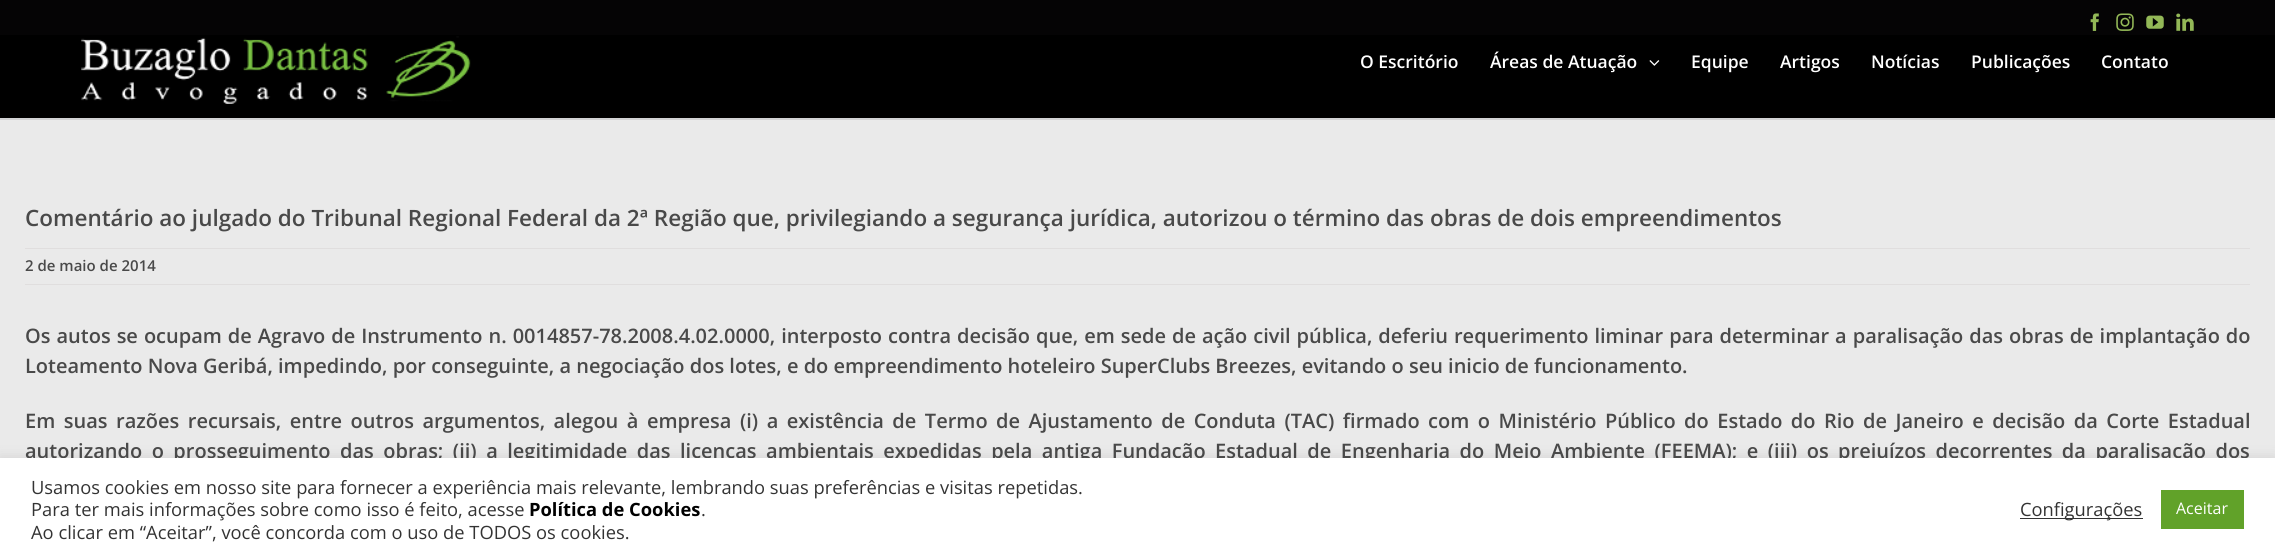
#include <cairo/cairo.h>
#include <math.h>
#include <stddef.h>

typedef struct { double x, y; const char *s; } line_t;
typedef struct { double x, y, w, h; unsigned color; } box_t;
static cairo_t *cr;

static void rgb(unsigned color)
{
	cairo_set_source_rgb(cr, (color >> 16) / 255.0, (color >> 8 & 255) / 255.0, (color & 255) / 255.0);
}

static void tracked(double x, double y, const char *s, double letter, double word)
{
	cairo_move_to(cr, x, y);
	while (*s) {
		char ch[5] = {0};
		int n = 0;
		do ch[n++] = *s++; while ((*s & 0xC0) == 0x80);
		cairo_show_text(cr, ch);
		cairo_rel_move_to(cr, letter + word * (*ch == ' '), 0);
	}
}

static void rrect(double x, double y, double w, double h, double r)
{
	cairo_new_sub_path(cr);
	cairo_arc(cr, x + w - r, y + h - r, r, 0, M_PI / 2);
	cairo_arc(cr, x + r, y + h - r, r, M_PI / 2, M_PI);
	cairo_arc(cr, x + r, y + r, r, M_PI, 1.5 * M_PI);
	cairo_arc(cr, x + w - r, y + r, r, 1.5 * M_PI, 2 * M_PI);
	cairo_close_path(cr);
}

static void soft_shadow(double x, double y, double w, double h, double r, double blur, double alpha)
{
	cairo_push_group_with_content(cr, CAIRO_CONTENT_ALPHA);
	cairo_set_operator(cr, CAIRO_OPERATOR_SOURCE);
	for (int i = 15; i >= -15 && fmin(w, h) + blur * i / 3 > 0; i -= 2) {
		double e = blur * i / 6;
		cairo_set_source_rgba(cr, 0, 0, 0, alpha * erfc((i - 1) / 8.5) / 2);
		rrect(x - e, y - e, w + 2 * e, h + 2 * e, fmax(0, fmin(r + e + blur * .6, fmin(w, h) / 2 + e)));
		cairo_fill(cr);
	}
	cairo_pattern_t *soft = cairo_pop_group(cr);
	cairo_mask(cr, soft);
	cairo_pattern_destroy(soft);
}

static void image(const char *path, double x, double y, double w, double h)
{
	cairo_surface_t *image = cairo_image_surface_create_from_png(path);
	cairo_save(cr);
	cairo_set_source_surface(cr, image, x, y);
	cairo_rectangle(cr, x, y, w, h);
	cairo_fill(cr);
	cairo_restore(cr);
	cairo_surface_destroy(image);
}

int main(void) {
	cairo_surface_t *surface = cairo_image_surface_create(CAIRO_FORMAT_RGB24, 2275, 559);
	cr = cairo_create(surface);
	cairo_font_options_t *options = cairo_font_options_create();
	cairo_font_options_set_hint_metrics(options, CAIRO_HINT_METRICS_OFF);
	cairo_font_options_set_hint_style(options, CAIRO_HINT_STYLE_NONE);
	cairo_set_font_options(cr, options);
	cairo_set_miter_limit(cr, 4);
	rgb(0xd2d3d4);
	cairo_paint(cr);
	rgb(0x050405);
	cairo_rectangle(cr, 0, 0, 2275, 35);
	cairo_fill(cr);
	rgb(0x000000);
	cairo_rectangle(cr, 0, 35, 2275, 83);
	cairo_fill(cr);
	image("img/1.png", 2090, 13, 9, 18);
	image("img/2.png", 2116, 13, 18, 18);
	image("img/3.png", 2146, 15, 18, 14);
	image("img/4.png", 2176, 13, 18, 18);
	image("img/5.png", 81, 36, 390, 68);
	image("img/6.png", 1649, 60, 11, 6);
	{
		static const box_t items[] = {
			{0, 120, 2275, 338, 0xeaeaea},
			{25, 248, 2225, 1, 0xe0dede},
			{25, 284, 2225, 1, 0xe0dede},
		};
		for (size_t i = 0; i < sizeof items / sizeof *items; i++) {
			rgb(items[i].color);
			cairo_rectangle(cr, items[i].x, items[i].y, items[i].w, items[i].h);
			cairo_fill(cr);
		}
	}
	rgb(0xacabab);
	soft_shadow(0, 456, 2275, 103, 0, 6, 0.3);
	cairo_select_font_face(cr, "Open Sans SemiBold", CAIRO_FONT_SLANT_NORMAL, CAIRO_FONT_WEIGHT_NORMAL);
	cairo_set_font_size(cr, 17.5);
	rgb(0xffffff);
	{
		static const line_t items[] = {
			{1360, 68, "O Escritório"},
			{1490, 68, "Áreas de Atuação"},
			{1691, 68, "Equipe"},
			{1780, 68, "Artigos"},
			{1871, 68, "Notícias"},
			{1971, 68, "Publicações"},
			{2101, 68, "Contato"},
		};
		for (size_t i = 0; i < sizeof items / sizeof *items; i++) {
			cairo_move_to(cr, items[i].x, items[i].y);
			cairo_show_text(cr, items[i].s);
		}
	}
	cairo_set_font_size(cr, 22.5);
	rgb(0x494949);
	cairo_move_to(cr, 25, 226);
	cairo_show_text(cr, "Comentário ao julgado do Tribunal Regional Federal da 2ª Região que, privilegiando a segurança jurídica, autorizou o término das obras de dois empreendimentos");
	cairo_set_font_size(cr, 15);
	cairo_move_to(cr, 25, 271);
	cairo_show_text(cr, "2 de maio de 2014");
	cairo_set_font_size(cr, 20);
	tracked(25, 343, "Os autos se ocupam de Agravo de Instrumento n. 0014857-78.2008.4.02.0000, interposto contra decisão que, em sede de ação civil pública, deferiu requerimento liminar para determinar a paralisação das obras de implantação do", 0, 0.8);
	cairo_move_to(cr, 25, 373);
	cairo_show_text(cr, "Loteamento Nova Geribá, impedindo, por conseguinte, a negociação dos lotes, e do empreendimento hoteleiro SuperClubs Breezes, evitando o seu inicio de funcionamento.");
	tracked(25, 428, "Em suas razões recursais, entre outros argumentos, alegou à empresa (i) a existência de Termo de Ajustamento de Conduta (TAC) firmado com o Ministério Público do Estado do Rio de Janeiro e decisão da Corte Estadual", 0, 3.3);
	tracked(25, 458, "autorizando o prosseguimento das obras; (ii) a legitimidade das licenças ambientais expedidas pela antiga Fundação Estadual de Engenharia do Meio Ambiente (FEEMA); e (iii) os prejuízos decorrentes da paralisação dos", 0, 4.3);
	rgb(0xffffff);
	cairo_rectangle(cr, 0, 458, 2275, 101);
	cairo_fill(cr);
	cairo_select_font_face(cr, "Open Sans", CAIRO_FONT_SLANT_NORMAL, CAIRO_FONT_WEIGHT_NORMAL);
	cairo_set_font_size(cr, 18.33);
	rgb(0x333333);
	cairo_move_to(cr, 31, 494);
	cairo_show_text(cr, "Usamos cookies em nosso site para fornecer a experiência mais relevante, lembrando suas preferências e visitas repetidas.");
	cairo_move_to(cr, 31, 516);
	cairo_show_text(cr, "Para ter mais informações sobre como isso é feito, acesse");
	cairo_select_font_face(cr, "Open Sans", CAIRO_FONT_SLANT_NORMAL, CAIRO_FONT_WEIGHT_BOLD);
	rgb(0x000000);
	cairo_move_to(cr, 529, 516);
	cairo_show_text(cr, "Política de Cookies");
	cairo_select_font_face(cr, "Open Sans", CAIRO_FONT_SLANT_NORMAL, CAIRO_FONT_WEIGHT_NORMAL);
	rgb(0x333333);
	cairo_move_to(cr, 701, 516);
	cairo_show_text(cr, ".");
	cairo_move_to(cr, 31, 539);
	cairo_show_text(cr, "Ao clicar em “Aceitar”, você concorda com o uso de TODOS os cookies.");
	cairo_rectangle(cr, 2020, 518, 123, 1);
	cairo_fill(cr);
	cairo_move_to(cr, 2020, 516);
	cairo_show_text(cr, "Configurações");
	rgb(0x61a229);
	cairo_rectangle(cr, 2161, 490, 83, 39);
	cairo_fill(cr);
	cairo_set_font_size(cr, 16);
	rgb(0xffffff);
	cairo_move_to(cr, 2176, 514);
	cairo_show_text(cr, "Aceitar");
	cairo_surface_write_to_png(surface, "page.png");
	cairo_font_options_destroy(options);
	cairo_destroy(cr);
	cairo_surface_destroy(surface);
	return 0;
}
